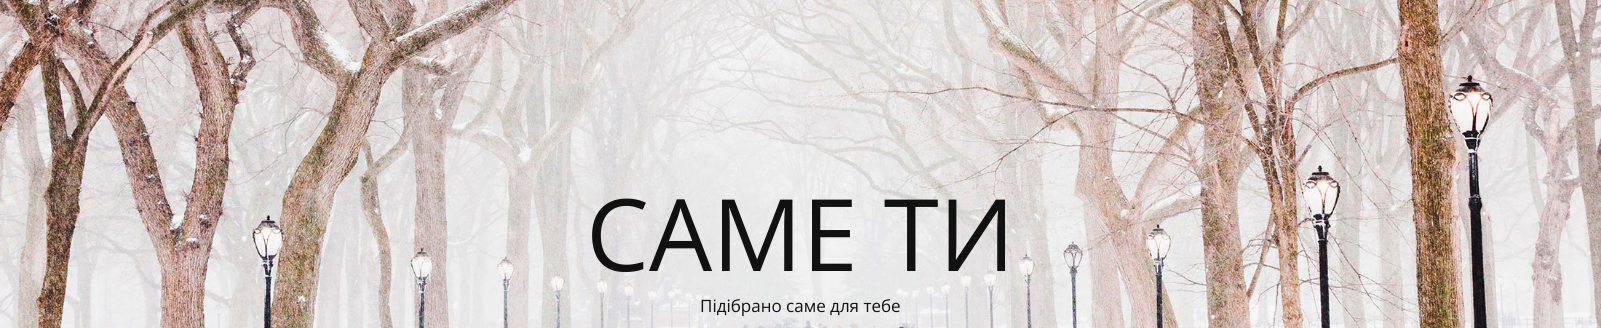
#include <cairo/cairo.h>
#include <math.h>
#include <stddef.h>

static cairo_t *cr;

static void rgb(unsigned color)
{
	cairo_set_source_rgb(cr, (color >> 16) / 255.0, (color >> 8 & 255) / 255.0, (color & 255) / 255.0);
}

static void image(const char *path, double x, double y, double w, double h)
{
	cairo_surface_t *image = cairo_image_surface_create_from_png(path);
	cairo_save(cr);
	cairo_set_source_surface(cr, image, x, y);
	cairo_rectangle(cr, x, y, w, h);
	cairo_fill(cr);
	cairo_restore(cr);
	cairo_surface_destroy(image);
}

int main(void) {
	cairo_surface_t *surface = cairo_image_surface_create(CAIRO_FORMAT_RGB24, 1601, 328);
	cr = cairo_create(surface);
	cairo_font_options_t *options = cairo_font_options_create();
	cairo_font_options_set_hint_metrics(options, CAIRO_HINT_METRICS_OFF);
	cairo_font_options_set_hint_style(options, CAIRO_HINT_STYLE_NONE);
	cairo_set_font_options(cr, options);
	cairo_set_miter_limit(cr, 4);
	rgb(0xffffff);
	cairo_paint(cr);
	image("img/1.png", 0, 0, 1601, 328);
	cairo_select_font_face(cr, "Open Sans", CAIRO_FONT_SLANT_NORMAL, CAIRO_FONT_WEIGHT_NORMAL);
	cairo_set_font_size(cr, 100);
	rgb(0x111111);
	cairo_move_to(cr, 586, 271);
	cairo_show_text(cr, "САМЕ ТИ");
	cairo_set_font_size(cr, 17);
	cairo_move_to(cr, 700, 312);
	cairo_show_text(cr, "Підібрано саме для тебе");
	cairo_surface_write_to_png(surface, "page.png");
	cairo_font_options_destroy(options);
	cairo_destroy(cr);
	cairo_surface_destroy(surface);
	return 0;
}
